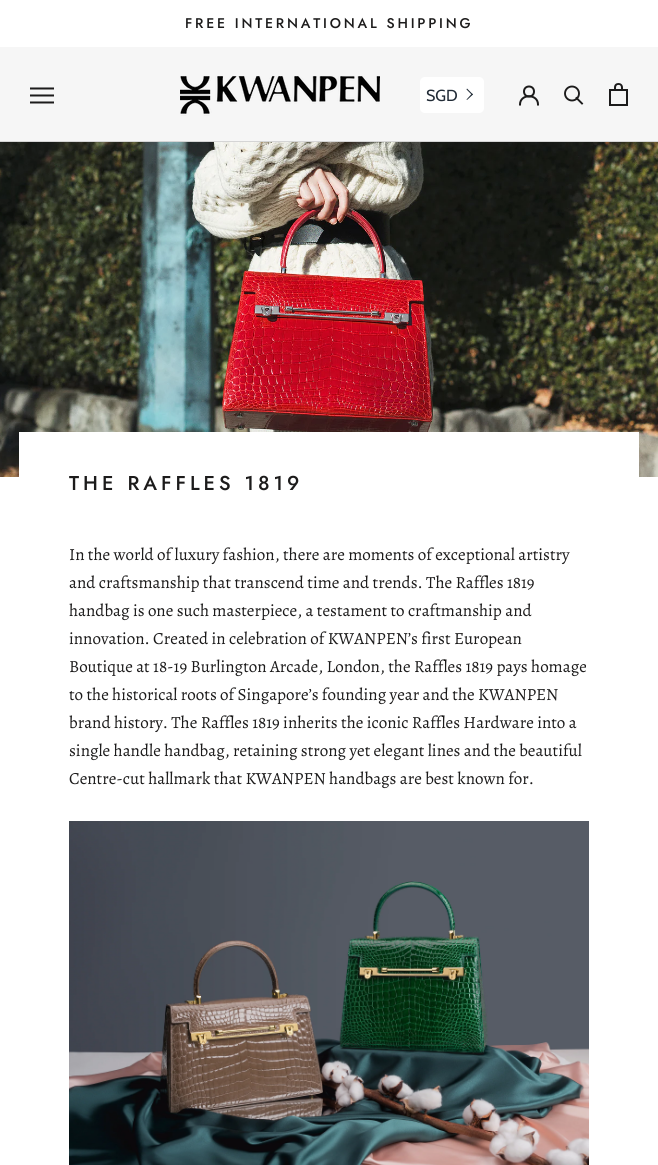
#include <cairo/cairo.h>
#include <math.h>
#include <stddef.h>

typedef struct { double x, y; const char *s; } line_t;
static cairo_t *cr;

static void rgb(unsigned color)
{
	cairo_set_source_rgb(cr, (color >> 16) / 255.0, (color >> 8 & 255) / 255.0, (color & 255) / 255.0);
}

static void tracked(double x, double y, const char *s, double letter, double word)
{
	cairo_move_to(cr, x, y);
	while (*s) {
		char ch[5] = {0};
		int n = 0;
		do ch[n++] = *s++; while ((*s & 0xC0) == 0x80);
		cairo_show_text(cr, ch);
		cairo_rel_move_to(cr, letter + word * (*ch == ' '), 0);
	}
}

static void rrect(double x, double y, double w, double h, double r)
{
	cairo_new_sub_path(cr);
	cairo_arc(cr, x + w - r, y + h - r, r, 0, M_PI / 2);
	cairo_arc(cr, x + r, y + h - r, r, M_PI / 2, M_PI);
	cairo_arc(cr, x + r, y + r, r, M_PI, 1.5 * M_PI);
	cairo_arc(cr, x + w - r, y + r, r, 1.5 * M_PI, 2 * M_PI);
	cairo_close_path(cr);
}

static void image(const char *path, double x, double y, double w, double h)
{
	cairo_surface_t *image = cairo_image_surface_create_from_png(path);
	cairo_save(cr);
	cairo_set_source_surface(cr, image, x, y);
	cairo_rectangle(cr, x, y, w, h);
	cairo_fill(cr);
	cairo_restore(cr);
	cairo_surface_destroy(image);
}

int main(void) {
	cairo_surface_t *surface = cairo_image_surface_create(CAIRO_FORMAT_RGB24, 658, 1165);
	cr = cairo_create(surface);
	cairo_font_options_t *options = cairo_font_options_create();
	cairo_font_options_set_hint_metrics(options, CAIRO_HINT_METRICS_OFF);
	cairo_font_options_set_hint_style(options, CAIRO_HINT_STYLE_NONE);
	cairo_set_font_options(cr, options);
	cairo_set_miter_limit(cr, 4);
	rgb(0xffffff);
	cairo_paint(cr);
	rgb(0xf6f6f6);
	cairo_rectangle(cr, 0, 47, 658, 94);
	cairo_fill(cr);
	rgb(0xd5d5d5);
	cairo_rectangle(cr, 0, 141, 658, 1);
	cairo_fill(cr);
	image("img/1.png", 30, 87, 24, 17);
	image("img/2.png", 180, 76, 200, 40);
	rgb(0xffffff);
	rrect(420, 77, 64, 36, 5);
	cairo_fill(cr);
	rgb(0x212b36);
	cairo_new_path(cr);
	cairo_move_to(cr, 466.5, 89.5);
	cairo_line_to(cr, 467, 88.5);
	cairo_line_to(cr, 473, 94.5);
	cairo_line_to(cr, 472, 95);
	cairo_close_path(cr);
	cairo_fill(cr);
	cairo_new_path(cr);
	cairo_move_to(cr, 466.5, 99.5);
	cairo_line_to(cr, 472, 93.5);
	cairo_line_to(cr, 473, 94.5);
	cairo_line_to(cr, 467, 100);
	cairo_close_path(cr);
	cairo_fill(cr);
	cairo_new_path(cr);
	cairo_move_to(cr, 520, 104.5);
	cairo_curve_to(cr, 520, 93.5, 538, 93.5, 538, 104.5);
	rgb(0x1c1b1b);
	cairo_set_line_cap(cr, CAIRO_LINE_CAP_SQUARE);
	cairo_stroke(cr);
	cairo_arc(cr, 529, 91.5, 5, 0, 2 * M_PI);
	cairo_set_line_cap(cr, CAIRO_LINE_CAP_BUTT);
	cairo_stroke(cr);
	cairo_new_path(cr);
	cairo_move_to(cr, 582, 103.5);
	cairo_line_to(cr, 576.5, 98);
	cairo_set_line_width(cr, 1.9);
	cairo_set_line_cap(cr, CAIRO_LINE_CAP_SQUARE);
	cairo_stroke(cr);
	cairo_arc(cr, 572, 93.5, 7, 0, 2 * M_PI);
	cairo_set_line_cap(cr, CAIRO_LINE_CAP_BUTT);
	cairo_stroke(cr);
	image("img/3.png", 609, 83, 19, 23);
	image("img/4.png", 0, 142, 658, 335);
	rgb(0xffffff);
	cairo_rectangle(cr, 19, 432, 620, 45);
	cairo_fill(cr);
	image("img/5.png", 69, 821, 520, 344);
	cairo_select_font_face(cr, "Jost Medium", CAIRO_FONT_SLANT_NORMAL, CAIRO_FONT_WEIGHT_NORMAL);
	cairo_set_font_size(cr, 14);
	rgb(0x1c1b1b);
	tracked(185, 28, "FREE INTERNATIONAL SHIPPING", 2.8, 0);
	cairo_select_font_face(cr, "Cabin", CAIRO_FONT_SLANT_NORMAL, CAIRO_FONT_WEIGHT_NORMAL);
	cairo_set_font_size(cr, 16);
	rgb(0x212b36);
	cairo_move_to(cr, 426, 101);
	cairo_show_text(cr, "SGD");
	cairo_select_font_face(cr, "Jost Medium", CAIRO_FONT_SLANT_NORMAL, CAIRO_FONT_WEIGHT_NORMAL);
	cairo_set_font_size(cr, 20);
	rgb(0x1c1b1b);
	tracked(69, 490, "THE RAFFLES 1819", 4, 0);
	cairo_select_font_face(cr, "Alegreya", CAIRO_FONT_SLANT_NORMAL, CAIRO_FONT_WEIGHT_NORMAL);
	cairo_set_font_size(cr, 17);
	{
		static const line_t items[] = {
			{69, 560, "In the world of luxury fashion, there are moments of exceptional artistry"},
			{69, 588, "and craftsmanship that transcend time and trends. The Raffles 1819"},
			{69, 616, "handbag is one such masterpiece, a testament to craftmanship and"},
			{69, 644, "innovation. Created in celebration of KWANPEN’s first European"},
			{69, 672, "Boutique at 18-19 Burlington Arcade, London, the Raffles 1819 pays homage"},
			{69, 700, "to the historical roots of Singapore’s founding year and the KWANPEN"},
			{69, 728, "brand history. The Raffles 1819 inherits the iconic Raffles Hardware into a"},
			{69, 756, "single handle handbag, retaining strong yet elegant lines and the beautiful"},
			{69, 784, "Centre-cut hallmark that KWANPEN handbags are best known for."},
		};
		for (size_t i = 0; i < sizeof items / sizeof *items; i++) {
			cairo_move_to(cr, items[i].x, items[i].y);
			cairo_show_text(cr, items[i].s);
		}
	}
	cairo_surface_write_to_png(surface, "page.png");
	cairo_font_options_destroy(options);
	cairo_destroy(cr);
	cairo_surface_destroy(surface);
	return 0;
}
